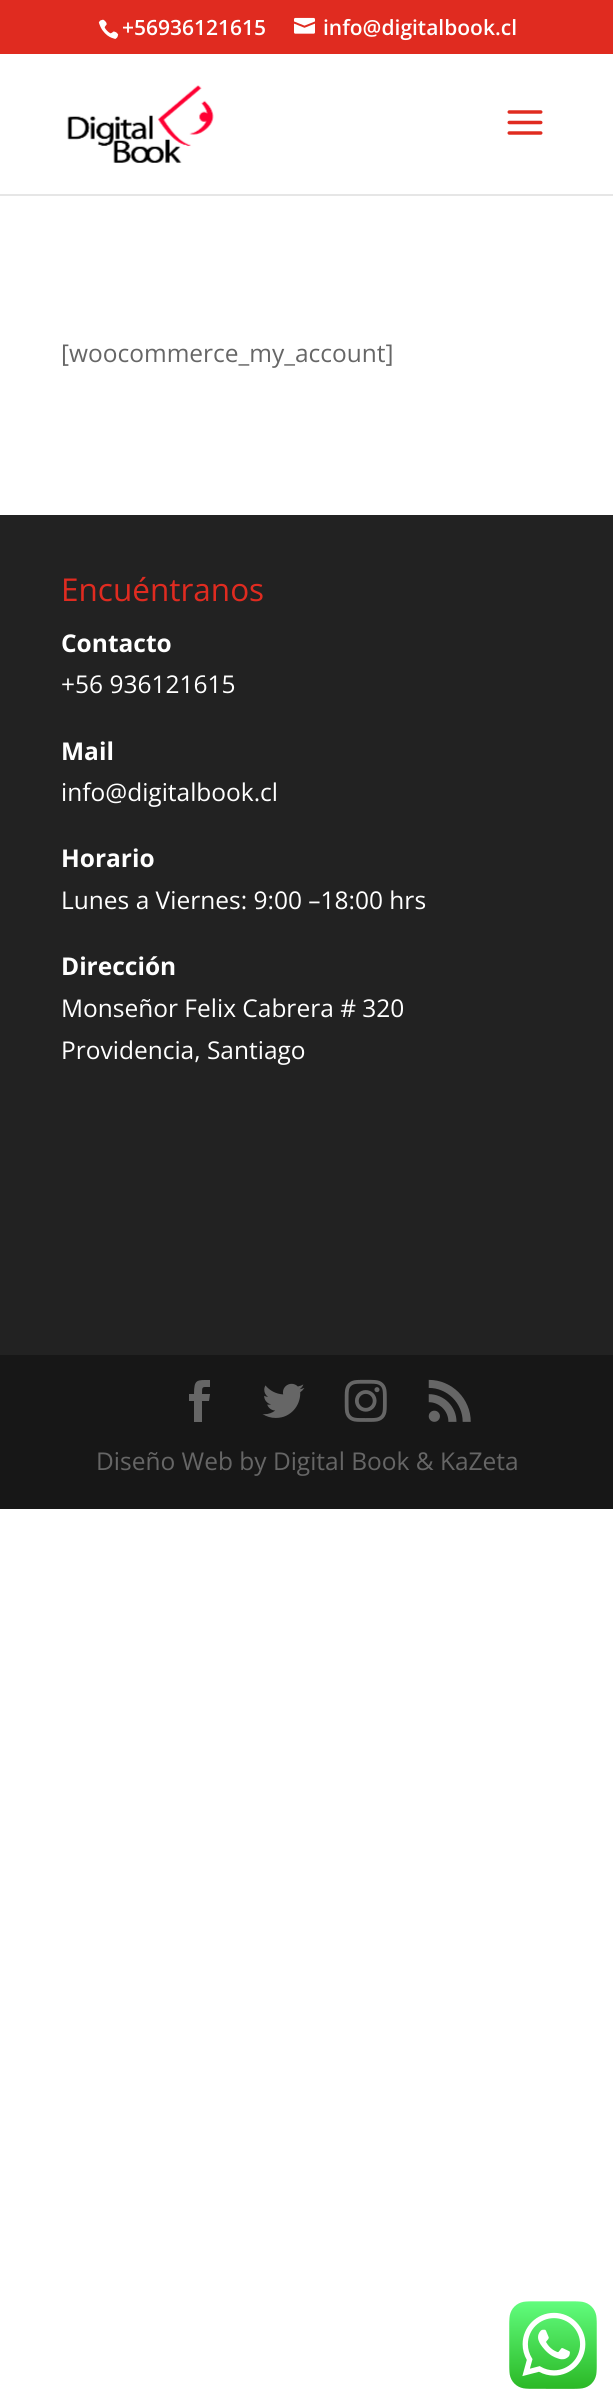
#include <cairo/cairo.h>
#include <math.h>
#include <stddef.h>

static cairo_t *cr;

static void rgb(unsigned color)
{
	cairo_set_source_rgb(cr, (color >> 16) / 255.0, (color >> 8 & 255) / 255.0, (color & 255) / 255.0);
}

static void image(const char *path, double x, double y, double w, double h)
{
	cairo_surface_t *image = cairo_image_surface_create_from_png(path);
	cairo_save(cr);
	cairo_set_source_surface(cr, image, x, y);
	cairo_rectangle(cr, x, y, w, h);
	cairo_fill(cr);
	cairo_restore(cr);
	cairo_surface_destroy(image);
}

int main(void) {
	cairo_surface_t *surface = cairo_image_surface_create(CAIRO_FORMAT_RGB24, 613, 2405);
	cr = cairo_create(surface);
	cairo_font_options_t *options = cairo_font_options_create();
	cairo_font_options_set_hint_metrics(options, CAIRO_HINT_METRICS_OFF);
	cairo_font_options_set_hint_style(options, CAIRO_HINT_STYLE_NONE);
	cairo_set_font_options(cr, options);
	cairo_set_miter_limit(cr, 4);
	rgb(0xffffff);
	cairo_paint(cr);
	rgb(0xe02b20);
	cairo_rectangle(cr, 0, 0, 613, 54);
	cairo_fill(cr);
	image("img/1.png", 98, 19, 21, 20);
	image("img/2.png", 294, 17, 21, 17);
	rgb(0xe6e6e6);
	cairo_rectangle(cr, 0, 194, 613, 2);
	cairo_fill(cr);
	image("img/3.png", 67, 85, 147, 78);
	image("img/4.png", 507, 110, 36, 25);
	rgb(0x222222);
	cairo_rectangle(cr, 0, 515, 613, 840);
	cairo_fill(cr);
	rgb(0x171717);
	cairo_rectangle(cr, 0, 1355, 613, 154);
	cairo_fill(cr);
	rgb(0x666666);
	cairo_new_path(cr);
	cairo_move_to(cr, 194, 1422);
	cairo_line_to(cr, 202, 1422);
	cairo_line_to(cr, 202, 1401);
	cairo_line_to(cr, 209, 1401);
	cairo_line_to(cr, 210, 1394);
	cairo_line_to(cr, 202, 1394);
	cairo_curve_to(cr, 202, 1386, 202, 1387, 210, 1387);
	cairo_line_to(cr, 210, 1380);
	cairo_curve_to(cr, 197, 1380, 194, 1379, 194, 1394);
	cairo_line_to(cr, 189, 1394);
	cairo_line_to(cr, 189, 1401);
	cairo_line_to(cr, 194, 1401);
	cairo_close_path(cr);
	cairo_fill(cr);
	image("img/5.png", 262, 1383, 43, 35);
	image("img/6.png", 344, 1379, 43, 43);
	image("img/7.png", 428, 1379, 43, 43);
	image("img/8.png", 509, 2301, 88, 88);
	cairo_select_font_face(cr, "Open Sans SemiBold", CAIRO_FONT_SLANT_NORMAL, CAIRO_FONT_WEIGHT_NORMAL);
	cairo_set_font_size(cr, 21);
	rgb(0xffffff);
	cairo_move_to(cr, 122, 35);
	cairo_show_text(cr, "+56936121615");
	cairo_move_to(cr, 323, 35);
	cairo_show_text(cr, "info@digitalbook.cl");
	cairo_select_font_face(cr, "Open Sans", CAIRO_FONT_SLANT_NORMAL, CAIRO_FONT_WEIGHT_NORMAL);
	cairo_set_font_size(cr, 24.5);
	rgb(0x666666);
	cairo_move_to(cr, 61, 362);
	cairo_show_text(cr, "[woocommerce_my_account]");
	cairo_set_font_size(cr, 31.5);
	rgb(0xe02b20);
	cairo_move_to(cr, 61, 601);
	cairo_show_text(cr, "Encuéntranos");
	cairo_select_font_face(cr, "Open Sans", CAIRO_FONT_SLANT_NORMAL, CAIRO_FONT_WEIGHT_BOLD);
	cairo_set_font_size(cr, 24.5);
	rgb(0xffffff);
	cairo_move_to(cr, 61, 652);
	cairo_show_text(cr, "Contacto");
	cairo_select_font_face(cr, "Open Sans", CAIRO_FONT_SLANT_NORMAL, CAIRO_FONT_WEIGHT_NORMAL);
	cairo_move_to(cr, 61, 693);
	cairo_show_text(cr, "+56 936121615");
	cairo_select_font_face(cr, "Open Sans", CAIRO_FONT_SLANT_NORMAL, CAIRO_FONT_WEIGHT_BOLD);
	cairo_move_to(cr, 61, 760);
	cairo_show_text(cr, "Mail");
	cairo_select_font_face(cr, "Open Sans", CAIRO_FONT_SLANT_NORMAL, CAIRO_FONT_WEIGHT_NORMAL);
	cairo_move_to(cr, 61, 801);
	cairo_show_text(cr, "info@digitalbook.cl");
	cairo_select_font_face(cr, "Open Sans", CAIRO_FONT_SLANT_NORMAL, CAIRO_FONT_WEIGHT_BOLD);
	cairo_move_to(cr, 61, 867);
	cairo_show_text(cr, "Horario");
	cairo_select_font_face(cr, "Open Sans", CAIRO_FONT_SLANT_NORMAL, CAIRO_FONT_WEIGHT_NORMAL);
	cairo_move_to(cr, 61, 909);
	cairo_show_text(cr, "Lunes a Viernes: 9:00 –18:00 hrs");
	cairo_select_font_face(cr, "Open Sans", CAIRO_FONT_SLANT_NORMAL, CAIRO_FONT_WEIGHT_BOLD);
	cairo_move_to(cr, 61, 975);
	cairo_show_text(cr, "Dirección");
	cairo_select_font_face(cr, "Open Sans", CAIRO_FONT_SLANT_NORMAL, CAIRO_FONT_WEIGHT_NORMAL);
	cairo_move_to(cr, 61, 1017);
	cairo_show_text(cr, "Monseñor Felix Cabrera # 320");
	cairo_move_to(cr, 61, 1059);
	cairo_show_text(cr, "Providencia, Santiago");
	rgb(0x666666);
	cairo_move_to(cr, 96, 1470);
	cairo_show_text(cr, "Diseño Web by Digital Book & KaZeta");
	cairo_surface_write_to_png(surface, "page.png");
	cairo_font_options_destroy(options);
	cairo_destroy(cr);
	cairo_surface_destroy(surface);
	return 0;
}
